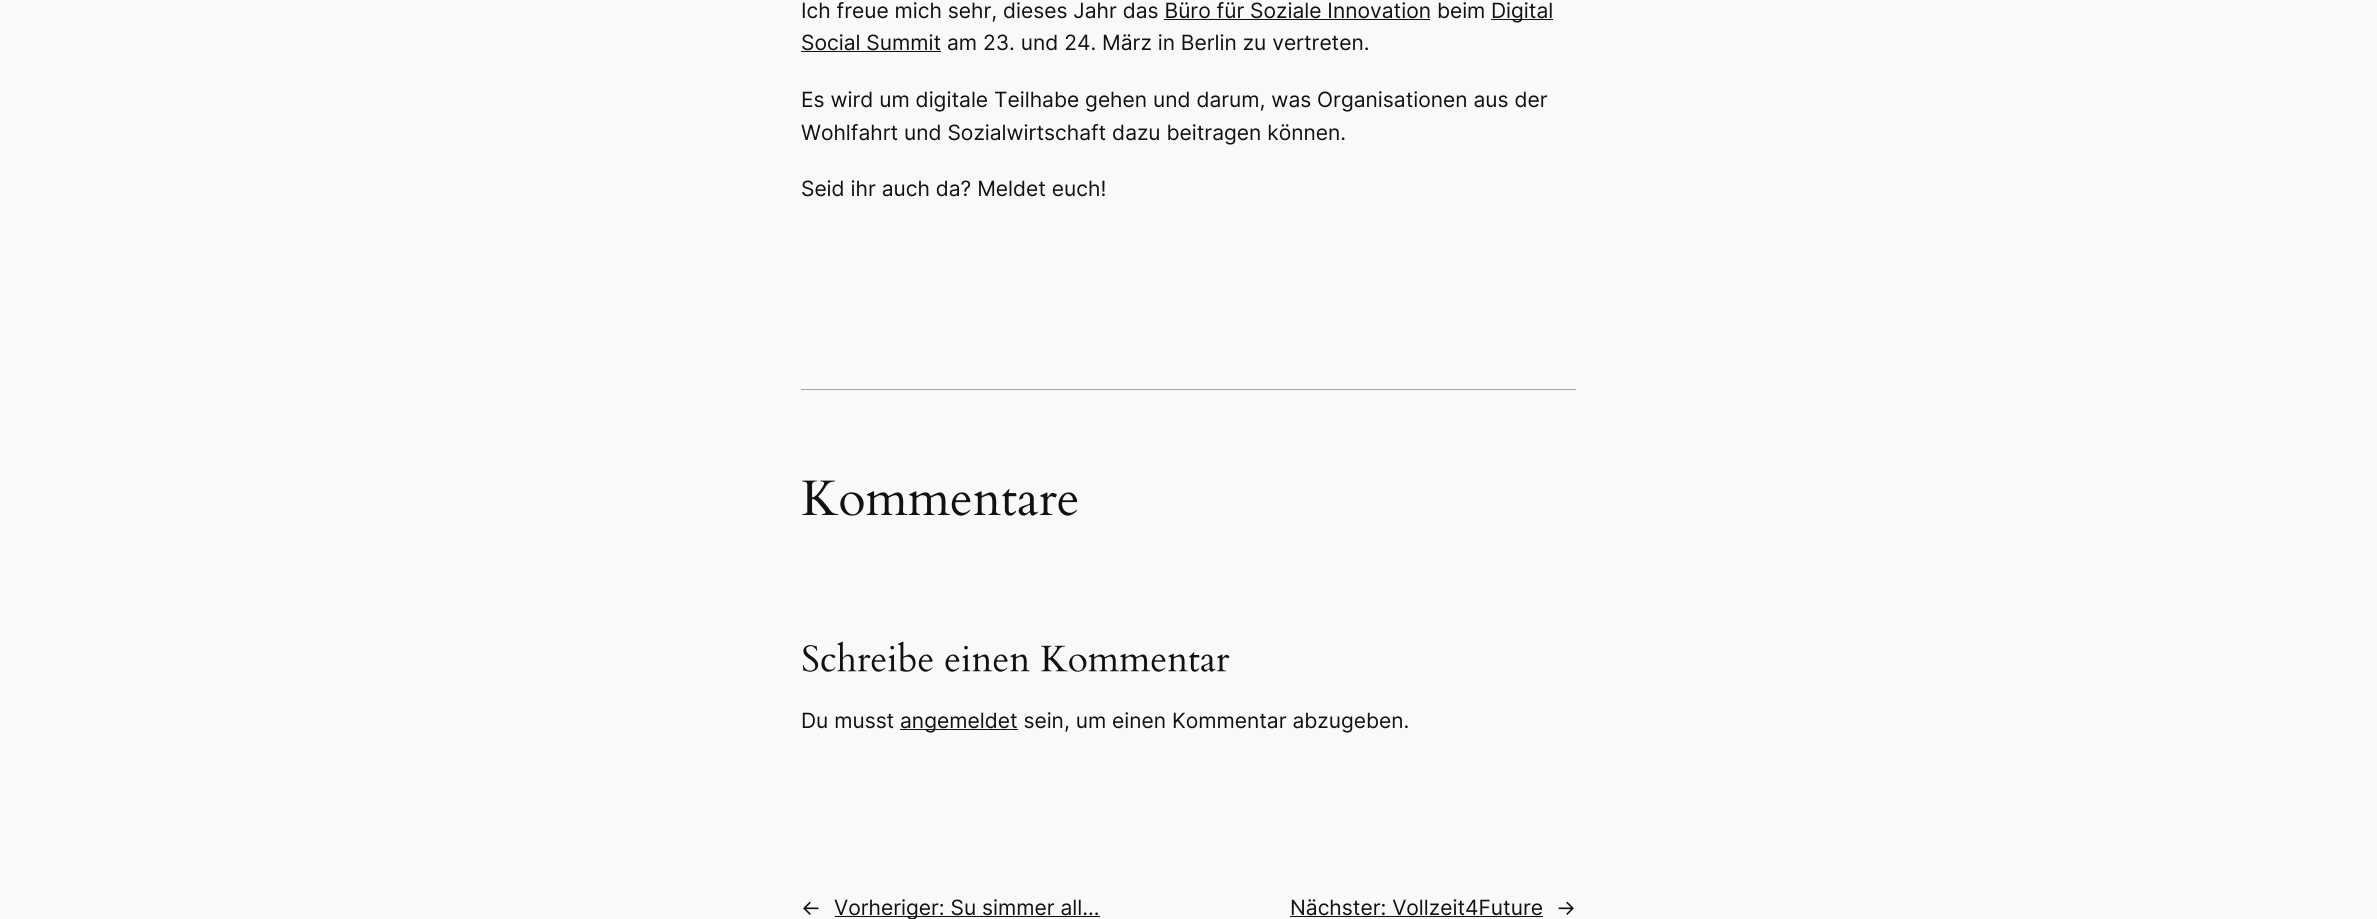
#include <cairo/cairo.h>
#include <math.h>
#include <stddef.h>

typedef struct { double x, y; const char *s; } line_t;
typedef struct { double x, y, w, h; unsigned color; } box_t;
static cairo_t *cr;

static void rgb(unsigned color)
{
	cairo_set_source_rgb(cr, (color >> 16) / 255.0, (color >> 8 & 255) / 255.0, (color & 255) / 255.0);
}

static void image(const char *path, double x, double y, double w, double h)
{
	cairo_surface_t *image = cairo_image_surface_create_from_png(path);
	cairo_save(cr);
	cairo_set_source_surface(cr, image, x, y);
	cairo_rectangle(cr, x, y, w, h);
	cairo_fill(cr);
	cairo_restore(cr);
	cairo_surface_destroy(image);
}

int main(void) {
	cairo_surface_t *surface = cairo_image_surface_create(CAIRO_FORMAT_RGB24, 2377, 919);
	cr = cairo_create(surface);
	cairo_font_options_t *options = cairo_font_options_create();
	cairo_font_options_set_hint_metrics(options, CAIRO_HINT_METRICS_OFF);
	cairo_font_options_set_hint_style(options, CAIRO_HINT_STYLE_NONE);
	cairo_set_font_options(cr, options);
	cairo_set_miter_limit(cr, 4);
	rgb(0xf9f9f9);
	cairo_paint(cr);
	{
		static const box_t items[] = {
			{1491, 19, 62, 1, 0x111111},
			{1164, 19, 266, 1, 0x111111},
			{801, 51, 140, 1, 0x111111},
			{801, 389, 775, 1, 0xa4a4a4},
		};
		for (size_t i = 0; i < sizeof items / sizeof *items; i++) {
			rgb(items[i].color);
			cairo_rectangle(cr, items[i].x, items[i].y, items[i].w, items[i].h);
			cairo_fill(cr);
		}
	}
	image("img/1.png", 802, 480, 276, 36);
	image("img/2.png", 802, 641, 428, 31);
	{
		static const box_t items[] = {
			{900, 729, 118, 1, 0x111111},
			{835, 916, 265, 1, 0x111111},
			{1290, 916, 253, 1, 0x111111},
		};
		for (size_t i = 0; i < sizeof items / sizeof *items; i++) {
			rgb(items[i].color);
			cairo_rectangle(cr, items[i].x, items[i].y, items[i].w, items[i].h);
			cairo_fill(cr);
		}
	}
	cairo_select_font_face(cr, "Inter", CAIRO_FONT_SLANT_NORMAL, CAIRO_FONT_WEIGHT_NORMAL);
	cairo_set_font_size(cr, 21);
	{
		static const line_t items[] = {
			{801, 18, "Ich freue mich sehr, dieses Jahr das Büro für Soziale Innovation beim"},
			{1491, 18, "Digital"},
			{801, 50, "Social Summit am 23. und 24. März in Berlin zu vertreten."},
			{801, 107, "Es wird um digitale Teilhabe gehen und darum, was Organisationen aus der"},
			{801, 140, "Wohlfahrt und Sozialwirtschaft dazu beitragen können."},
			{801, 196, "Seid ihr auch da? Meldet euch!"},
			{801, 728, "Du musst"},
			{900, 728, "angemeldet sein, um einen Kommentar abzugeben."},
			{801, 915, "←"},
			{834, 915, "Vorheriger: Su simmer all…"},
			{1290, 915, "Nächster: Vollzeit4Future"},
			{1556, 915, "→"},
		};
		for (size_t i = 0; i < sizeof items / sizeof *items; i++) {
			cairo_move_to(cr, items[i].x, items[i].y);
			cairo_show_text(cr, items[i].s);
		}
	}
	cairo_surface_write_to_png(surface, "page.png");
	cairo_font_options_destroy(options);
	cairo_destroy(cr);
	cairo_surface_destroy(surface);
	return 0;
}
